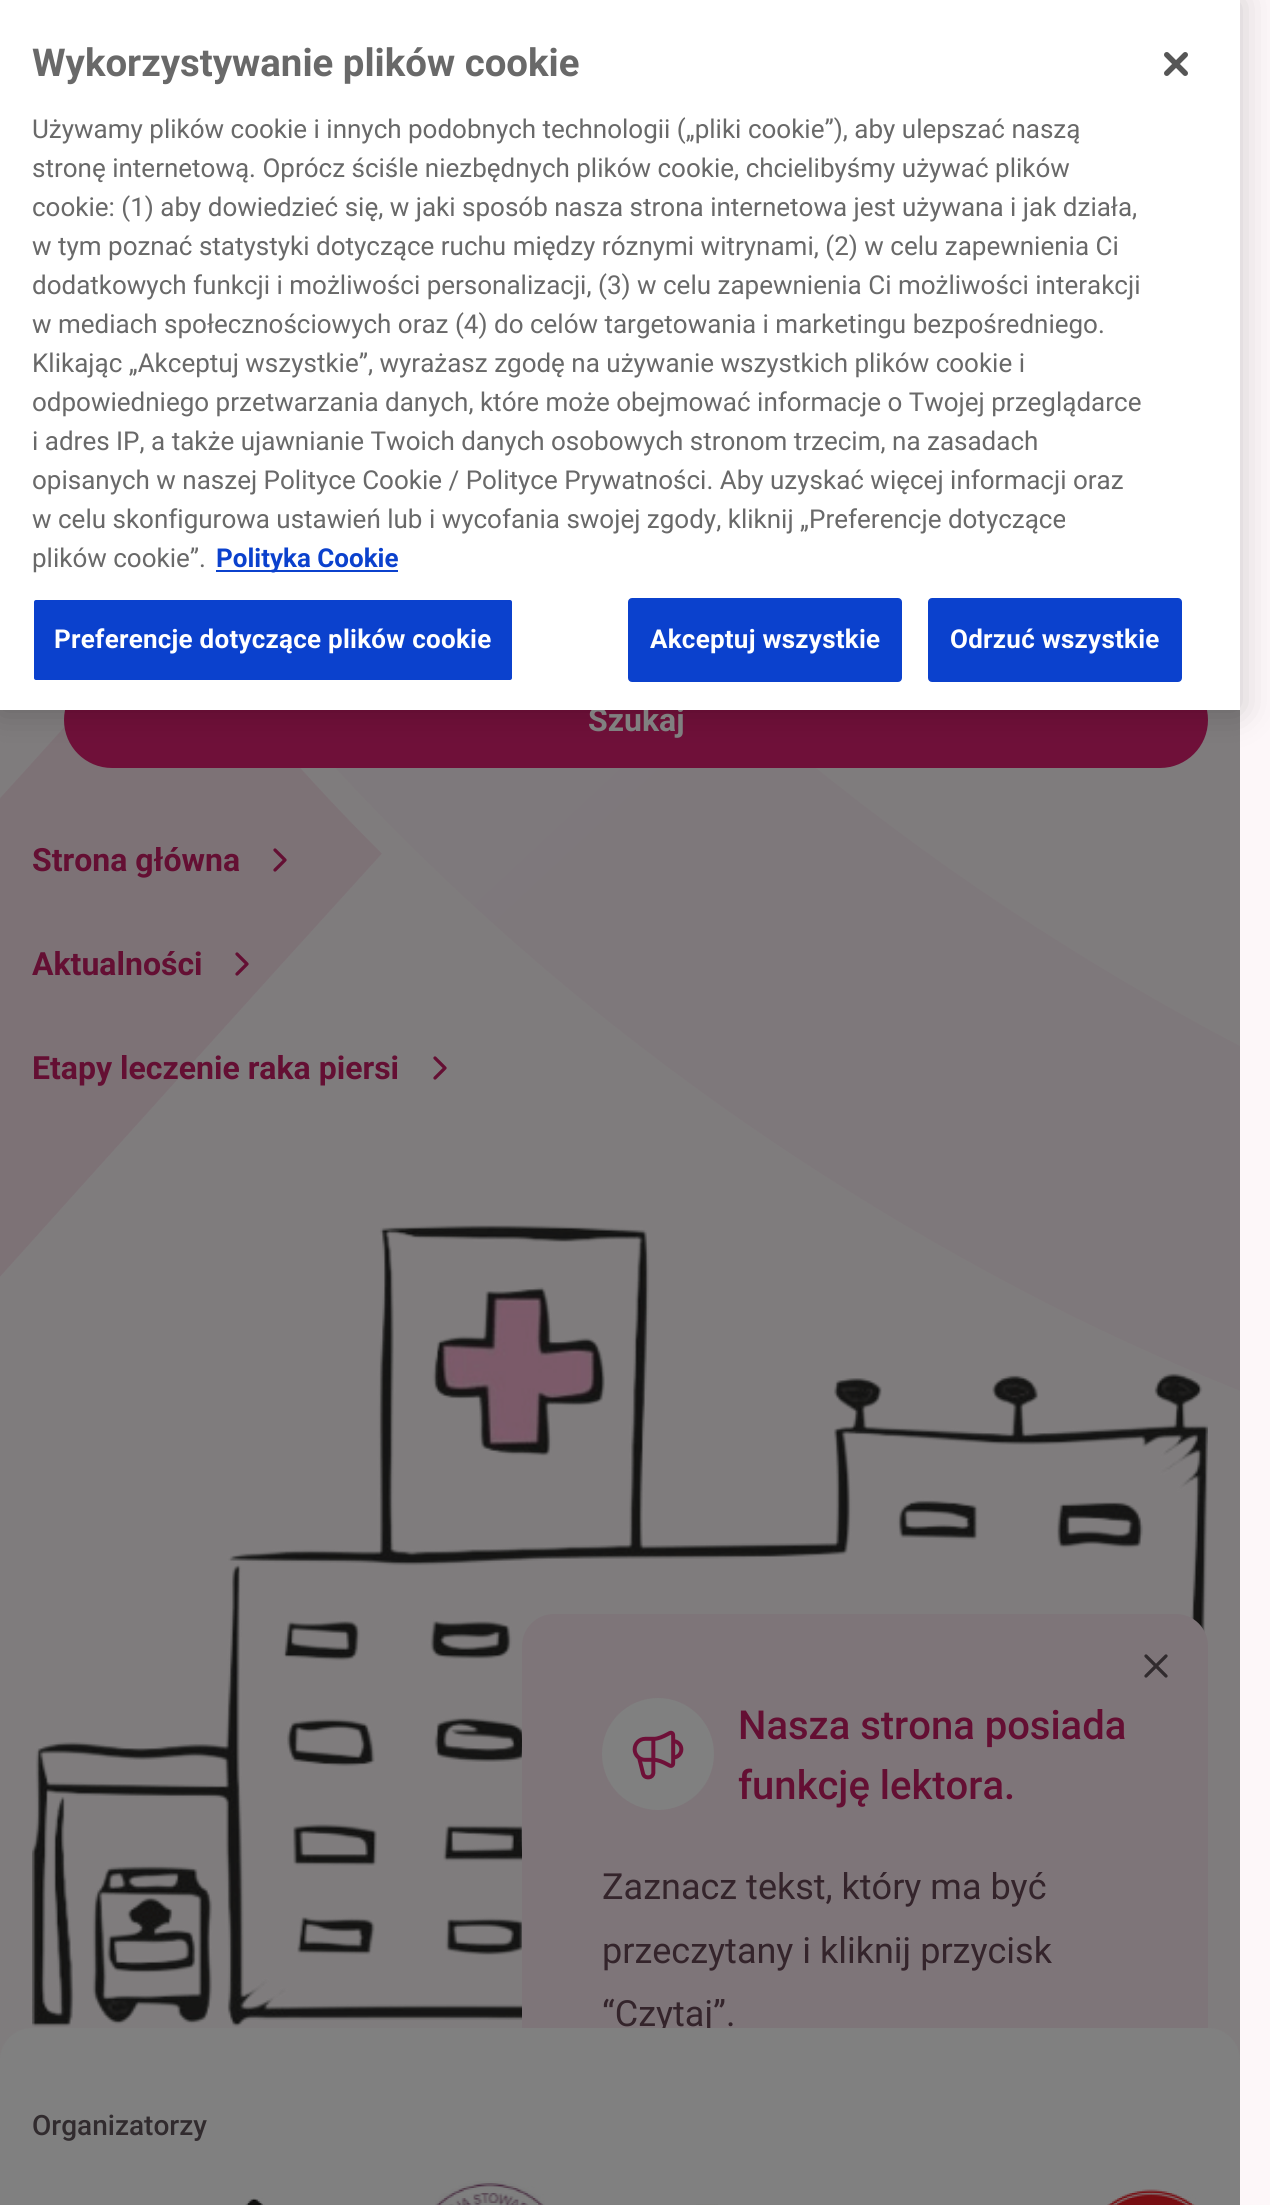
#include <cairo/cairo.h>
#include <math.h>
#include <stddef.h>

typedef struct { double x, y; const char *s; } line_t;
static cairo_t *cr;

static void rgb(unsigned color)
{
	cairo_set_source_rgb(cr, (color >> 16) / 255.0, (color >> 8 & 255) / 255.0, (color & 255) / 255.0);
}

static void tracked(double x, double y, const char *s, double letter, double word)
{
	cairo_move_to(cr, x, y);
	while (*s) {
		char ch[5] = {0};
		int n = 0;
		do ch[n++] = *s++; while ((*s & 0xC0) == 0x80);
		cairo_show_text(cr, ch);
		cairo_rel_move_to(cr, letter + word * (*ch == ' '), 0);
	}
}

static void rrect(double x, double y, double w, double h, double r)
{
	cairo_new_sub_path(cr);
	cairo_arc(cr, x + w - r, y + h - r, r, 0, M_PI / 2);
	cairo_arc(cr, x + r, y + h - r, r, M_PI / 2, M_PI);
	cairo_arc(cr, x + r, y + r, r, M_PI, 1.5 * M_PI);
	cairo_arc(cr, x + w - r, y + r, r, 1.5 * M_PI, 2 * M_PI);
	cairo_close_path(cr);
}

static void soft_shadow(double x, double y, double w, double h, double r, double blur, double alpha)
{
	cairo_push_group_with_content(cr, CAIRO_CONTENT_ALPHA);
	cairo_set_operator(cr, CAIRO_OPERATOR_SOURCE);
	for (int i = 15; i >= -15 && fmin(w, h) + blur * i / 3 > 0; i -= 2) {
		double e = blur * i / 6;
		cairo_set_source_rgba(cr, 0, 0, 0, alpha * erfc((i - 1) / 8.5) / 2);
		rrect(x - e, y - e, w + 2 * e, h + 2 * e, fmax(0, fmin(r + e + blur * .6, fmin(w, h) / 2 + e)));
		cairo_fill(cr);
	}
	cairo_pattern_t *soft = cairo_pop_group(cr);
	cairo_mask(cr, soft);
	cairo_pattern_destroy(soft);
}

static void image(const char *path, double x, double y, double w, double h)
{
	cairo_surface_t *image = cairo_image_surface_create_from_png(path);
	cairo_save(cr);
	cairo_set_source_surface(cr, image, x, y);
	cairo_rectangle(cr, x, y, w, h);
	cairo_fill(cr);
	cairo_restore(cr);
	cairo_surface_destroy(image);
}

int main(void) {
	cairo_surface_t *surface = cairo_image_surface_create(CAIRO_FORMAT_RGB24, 1270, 2205);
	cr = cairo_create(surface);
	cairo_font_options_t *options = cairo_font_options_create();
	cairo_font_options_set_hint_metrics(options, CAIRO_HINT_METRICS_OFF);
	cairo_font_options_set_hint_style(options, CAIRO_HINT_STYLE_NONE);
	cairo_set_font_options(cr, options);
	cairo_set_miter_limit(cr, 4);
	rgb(0xfdf7f9);
	cairo_paint(cr);
	rgb(0x7f7c7d);
	cairo_rectangle(cr, 0, 710, 1240, 1350);
	cairo_fill(cr);
	image("img/8.png", 0, 726, 1240, 665);
	rgb(0x6f1039);
	rrect(65, 673, 1142, 94, 47);
	cairo_fill_preserve(cr);
	cairo_stroke(cr);
	rgb(0x000000);
	soft_shadow(0, 0, 1240, 710, 0, 18, 0.2);
	cairo_new_path(cr);
	cairo_move_to(cr, 275, 870);
	cairo_line_to(cr, 285, 860);
	cairo_line_to(cr, 275, 850);
	rgb(0x640f33);
	cairo_set_line_width(cr, 3.3);
	cairo_set_line_cap(cr, CAIRO_LINE_CAP_ROUND);
	cairo_set_line_join(cr, CAIRO_LINE_JOIN_ROUND);
	cairo_stroke(cr);
	cairo_new_path(cr);
	cairo_move_to(cr, 237, 974);
	cairo_line_to(cr, 247, 964);
	cairo_line_to(cr, 237, 954);
	cairo_stroke(cr);
	cairo_new_path(cr);
	cairo_move_to(cr, 435, 1078);
	cairo_line_to(cr, 445, 1068);
	cairo_line_to(cr, 435, 1058);
	cairo_stroke(cr);
	image("img/2.png", 32, 1225, 1176, 802);
	rgb(0x7e7579);
	rrect(522, 1614, 686, 512, 32);
	cairo_fill(cr);
	cairo_new_path(cr);
	cairo_move_to(cr, 1166, 1656);
	cairo_line_to(cr, 1146, 1676);
	cairo_move_to(cr, 1146, 1656);
	cairo_line_to(cr, 1166, 1676);
	rgb(0x312b2e);
	cairo_stroke(cr);
	image("img/3.png", 602, 1698, 112, 112);
	cairo_select_font_face(cr, "Roboto", CAIRO_FONT_SLANT_NORMAL, CAIRO_FONT_WEIGHT_BOLD);
	cairo_set_font_size(cr, 32);
	rgb(0x808080);
	cairo_move_to(cr, 588, 731);
	cairo_show_text(cr, "Szukaj");
	rgb(0xffffff);
	cairo_rectangle(cr, 0, 0, 1240, 710);
	cairo_fill(cr);
	image("img/1.png", 1164, 52, 24, 24);
	rgb(0x0b41cd);
	rrect(629, 599, 272, 82, 3);
	cairo_fill_preserve(cr);
	cairo_set_line_width(cr, 2);
	cairo_set_line_cap(cr, CAIRO_LINE_CAP_BUTT);
	cairo_set_line_join(cr, CAIRO_LINE_JOIN_MITER);
	cairo_stroke(cr);
	cairo_set_font_size(cr, 26);
	rgb(0xffffff);
	tracked(650, 648, "Akceptuj wszystkie", 0.25, 0);
	rgb(0x0b41cd);
	rrect(929, 599, 252, 82, 3);
	cairo_fill_preserve(cr);
	cairo_stroke(cr);
	rgb(0xffffff);
	tracked(950, 648, "Odrzuć wszystkie", 0.25, 0);
	rgb(0x0b41cd);
	rrect(33, 599, 480, 82, 3);
	cairo_fill_preserve(cr);
	rgb(0xffffff);
	cairo_stroke(cr);
	tracked(54, 648, "Preferencje dotyczące plików cookie", 0.25, 0);
	rgb(0x0b41cd);
	cairo_rectangle(cr, 216, 570, 182, 2);
	cairo_fill(cr);
	cairo_move_to(cr, 216, 567);
	cairo_show_text(cr, "Polityka Cookie");
	cairo_select_font_face(cr, "Roboto", CAIRO_FONT_SLANT_NORMAL, CAIRO_FONT_WEIGHT_NORMAL);
	rgb(0x696969);
	{
		static const line_t items[] = {
			{32, 567, "plików cookie”."},
			{32, 528, "w celu skonfigurowa ustawień lub i wycofania swojej zgody, kliknij „Preferencje dotyczące"},
			{32, 489, "opisanych w naszej Polityce Cookie / Polityce Prywatności. Aby uzyskać więcej informacji oraz"},
			{32, 450, "i adres IP, a także ujawnianie Twoich danych osobowych stronom trzecim, na zasadach"},
			{32, 411, "odpowiedniego przetwarzania danych, które może obejmować informacje o Twojej przeglądarce"},
			{32, 372, "Klikając „Akceptuj wszystkie”, wyrażasz zgodę na używanie wszystkich plików cookie i"},
			{32, 333, "w mediach społecznościowych oraz (4) do celów targetowania i marketingu bezpośredniego."},
			{32, 294, "dodatkowych funkcji i możliwości personalizacji, (3) w celu zapewnienia Ci możliwości interakcji"},
			{32, 255, "w tym poznać statystyki dotyczące ruchu między róznymi witrynami, (2) w celu zapewnienia Ci"},
			{32, 216, "cookie: (1) aby dowiedzieć się, w jaki sposób nasza strona internetowa jest używana i jak działa,"},
			{32, 177, "stronę internetową. Oprócz ściśle niezbędnych plików cookie, chcielibyśmy używać plików"},
			{32, 138, "Używamy plików cookie i innych podobnych technologii („pliki cookie”), aby ulepszać naszą"},
		};
		for (size_t i = 0; i < sizeof items / sizeof *items; i++) {
			cairo_move_to(cr, items[i].x, items[i].y);
			cairo_show_text(cr, items[i].s);
		}
	}
	cairo_select_font_face(cr, "Roboto", CAIRO_FONT_SLANT_NORMAL, CAIRO_FONT_WEIGHT_BOLD);
	cairo_set_font_size(cr, 38.4);
	cairo_move_to(cr, 32, 76);
	cairo_show_text(cr, "Wykorzystywanie plików cookie");
	cairo_set_font_size(cr, 32);
	rgb(0x640f33);
	{
		static const line_t items[] = {
			{32, 871, "Strona główna"},
			{32, 975, "Aktualności"},
			{32, 1079, "Etapy leczenie raka piersi"},
		};
		for (size_t i = 0; i < sizeof items / sizeof *items; i++) {
			cairo_move_to(cr, items[i].x, items[i].y);
			cairo_show_text(cr, items[i].s);
		}
	}
	cairo_select_font_face(cr, "Roboto Medium", CAIRO_FONT_SLANT_NORMAL, CAIRO_FONT_WEIGHT_NORMAL);
	cairo_set_font_size(cr, 40);
	cairo_move_to(cr, 738, 1739);
	cairo_show_text(cr, "Nasza strona posiada");
	cairo_move_to(cr, 738, 1799);
	cairo_show_text(cr, "funkcję lektora.");
	cairo_select_font_face(cr, "Roboto", CAIRO_FONT_SLANT_NORMAL, CAIRO_FONT_WEIGHT_NORMAL);
	cairo_set_font_size(cr, 36);
	rgb(0x34242b);
	{
		static const line_t items[] = {
			{602, 1899, "Zaznacz tekst, który ma być"},
			{602, 1963, "przeczytany i kliknij przycisk"},
			{602, 2026, "“Czytaj”."},
		};
		for (size_t i = 0; i < sizeof items / sizeof *items; i++) {
			cairo_move_to(cr, items[i].x, items[i].y);
			cairo_show_text(cr, items[i].s);
		}
	}
	rgb(0x808080);
	cairo_new_path(cr);
	cairo_move_to(cr, 32, 2028);
	cairo_line_to(cr, 1208, 2028);
	cairo_curve_to(cr, 1225.5, 2028, 1240, 2042.5, 1240, 2060);
	cairo_line_to(cr, 1240, 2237);
	cairo_line_to(cr, 0, 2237);
	cairo_line_to(cr, 0, 2060);
	cairo_curve_to(cr, 0, 2042.5, 14.5, 2028, 32, 2028);
	cairo_close_path(cr);
	cairo_fill(cr);
	cairo_select_font_face(cr, "Roboto Medium", CAIRO_FONT_SLANT_NORMAL, CAIRO_FONT_WEIGHT_NORMAL);
	cairo_set_font_size(cr, 28);
	rgb(0x312b2e);
	cairo_move_to(cr, 32, 2135);
	cairo_show_text(cr, "Organizatorzy");
	image("img/4.png", 245, 2198, 20, 7);
	image("img/5.png", 435, 2181, 110, 24);
	image("img/6.png", 696, 2204, 22, 1);
	image("img/7.png", 1107, 2189, 89, 16);
	cairo_surface_write_to_png(surface, "page.png");
	cairo_font_options_destroy(options);
	cairo_destroy(cr);
	cairo_surface_destroy(surface);
	return 0;
}
